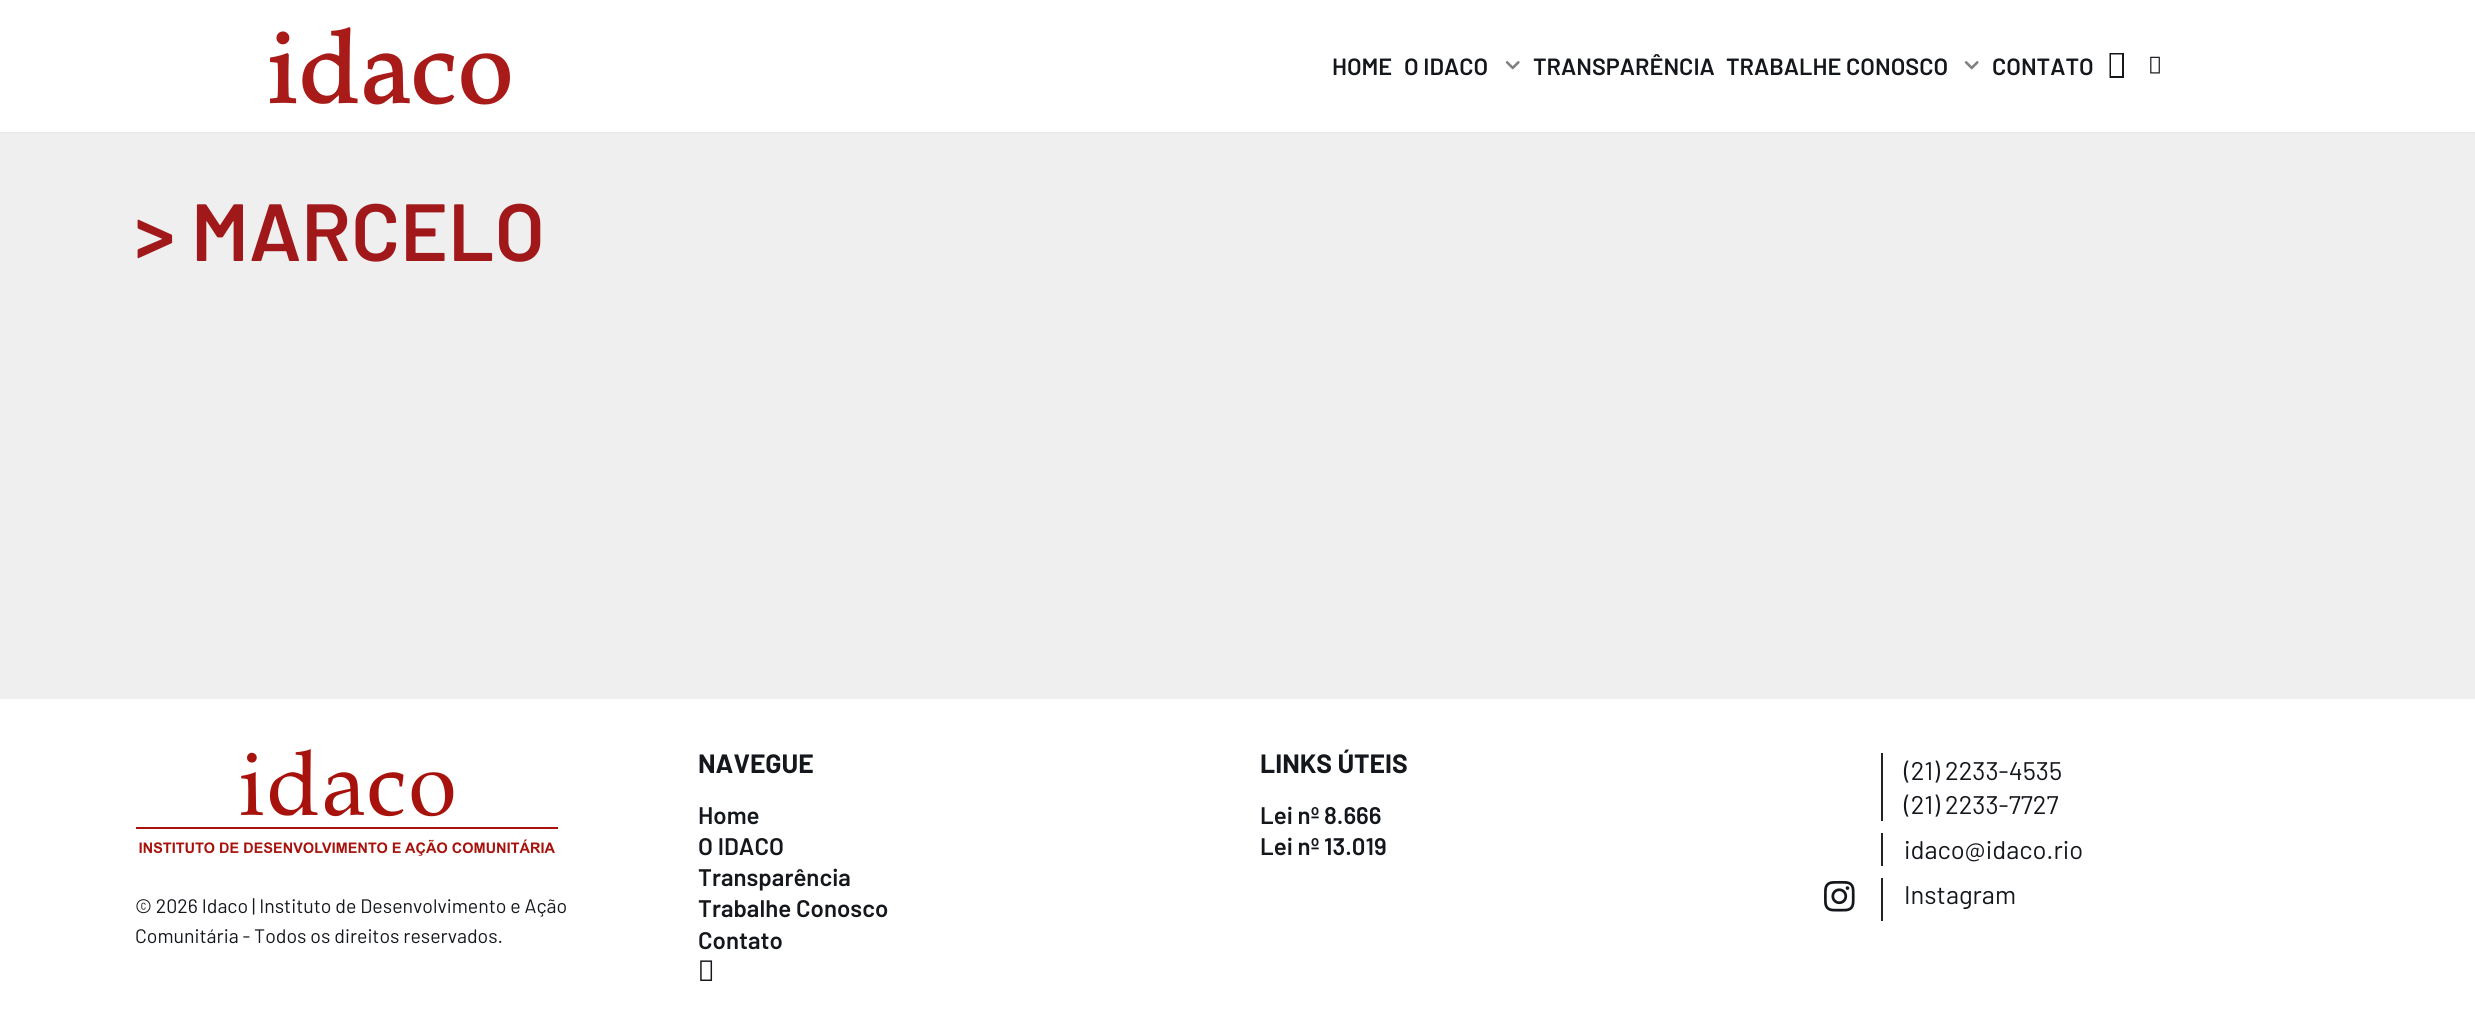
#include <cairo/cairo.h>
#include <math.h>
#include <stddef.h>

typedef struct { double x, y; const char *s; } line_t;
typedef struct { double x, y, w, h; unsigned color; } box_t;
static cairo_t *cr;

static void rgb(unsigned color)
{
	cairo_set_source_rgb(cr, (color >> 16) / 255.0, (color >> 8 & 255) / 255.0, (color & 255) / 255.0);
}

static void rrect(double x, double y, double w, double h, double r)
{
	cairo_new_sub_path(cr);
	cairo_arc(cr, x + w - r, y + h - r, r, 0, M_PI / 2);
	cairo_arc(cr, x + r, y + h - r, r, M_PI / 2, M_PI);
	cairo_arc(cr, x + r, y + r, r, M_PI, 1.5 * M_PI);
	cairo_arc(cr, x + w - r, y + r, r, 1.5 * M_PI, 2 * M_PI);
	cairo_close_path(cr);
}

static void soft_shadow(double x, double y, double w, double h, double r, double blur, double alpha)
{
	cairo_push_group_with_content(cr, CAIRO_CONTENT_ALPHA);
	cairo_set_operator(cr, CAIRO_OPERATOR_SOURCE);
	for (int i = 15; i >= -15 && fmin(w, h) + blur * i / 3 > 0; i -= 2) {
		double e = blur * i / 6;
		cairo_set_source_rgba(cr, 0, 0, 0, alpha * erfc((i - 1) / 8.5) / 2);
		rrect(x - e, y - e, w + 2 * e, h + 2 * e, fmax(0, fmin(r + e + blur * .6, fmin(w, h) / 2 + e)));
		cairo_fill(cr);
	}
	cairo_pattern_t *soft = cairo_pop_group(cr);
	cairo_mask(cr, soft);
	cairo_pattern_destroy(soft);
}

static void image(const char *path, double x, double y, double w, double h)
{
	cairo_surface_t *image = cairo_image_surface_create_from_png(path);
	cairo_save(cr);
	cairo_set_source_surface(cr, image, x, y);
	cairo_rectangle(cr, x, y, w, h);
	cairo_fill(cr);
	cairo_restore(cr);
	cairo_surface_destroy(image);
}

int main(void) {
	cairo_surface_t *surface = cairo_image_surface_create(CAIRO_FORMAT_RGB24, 2475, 1029);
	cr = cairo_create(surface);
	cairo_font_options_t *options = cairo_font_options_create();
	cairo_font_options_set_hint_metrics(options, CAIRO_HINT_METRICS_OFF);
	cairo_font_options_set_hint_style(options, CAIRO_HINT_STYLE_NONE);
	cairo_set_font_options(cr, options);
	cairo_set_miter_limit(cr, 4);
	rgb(0xefefef);
	cairo_paint(cr);
	rgb(0x000000);
	soft_shadow(0, -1, 2475, 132, 0, 2, 0.1);
	rgb(0xffffff);
	cairo_rectangle(cr, 0, 0, 2475, 132);
	cairo_fill(cr);
	image("img/1.png", 270, 27, 240, 78);
	image("img/2.png", 1505, 61, 15, 9);
	image("img/2.png", 1964, 61, 15, 9);
	rgb(0x14171c);
	cairo_new_path(cr);
	cairo_move_to(cr, 2109.5, 78);
	cairo_line_to(cr, 2109.5, 53);
	cairo_line_to(cr, 2124, 53);
	cairo_line_to(cr, 2124, 78);
	cairo_close_path(cr);
	cairo_move_to(cr, 2111, 76);
	cairo_line_to(cr, 2122, 76);
	cairo_line_to(cr, 2122, 54.5);
	cairo_line_to(cr, 2111, 54.5);
	cairo_close_path(cr);
	cairo_fill(cr);
	image("img/3.png", 2150, 56, 10, 18);
	rgb(0xffffff);
	cairo_rectangle(cr, 0, 699, 2475, 330);
	cairo_fill(cr);
	image("img/4.png", 700, 960, 13, 21);
	{
		static const box_t items[] = {
			{1881, 753, 2, 68, 0x212121},
			{1881, 833, 2, 33, 0x212121},
			{1881, 878, 2, 43, 0x212121},
		};
		for (size_t i = 0; i < sizeof items / sizeof *items; i++) {
			rgb(items[i].color);
			cairo_rectangle(cr, items[i].x, items[i].y, items[i].w, items[i].h);
			cairo_fill(cr);
		}
	}
	image("img/5.png", 1824, 880, 31, 32);
	image("img/6.png", 136, 749, 422, 107);
	cairo_select_font_face(cr, "Barlow SemiBold", CAIRO_FONT_SLANT_NORMAL, CAIRO_FONT_WEIGHT_NORMAL);
	cairo_set_font_size(cr, 23.5);
	rgb(0x14171c);
	{
		static const line_t items[] = {
			{1332, 75, "HOME"},
			{1404, 75, "O IDACO"},
			{1533, 75, "TRANSPARÊNCIA"},
			{1726, 75, "TRABALHE CONOSCO"},
			{1992, 75, "CONTATO"},
		};
		for (size_t i = 0; i < sizeof items / sizeof *items; i++) {
			cairo_move_to(cr, items[i].x, items[i].y);
			cairo_show_text(cr, items[i].s);
		}
	}
	cairo_set_font_size(cr, 81);
	rgb(0xa1181a);
	cairo_move_to(cr, 135, 261);
	cairo_show_text(cr, "> MARCELO");
	cairo_select_font_face(cr, "Barlow", CAIRO_FONT_SLANT_NORMAL, CAIRO_FONT_WEIGHT_BOLD);
	cairo_set_font_size(cr, 26.5);
	rgb(0x14171c);
	cairo_move_to(cr, 698, 773);
	cairo_show_text(cr, "NAVEGUE");
	cairo_select_font_face(cr, "Barlow SemiBold", CAIRO_FONT_SLANT_NORMAL, CAIRO_FONT_WEIGHT_NORMAL);
	cairo_set_font_size(cr, 24);
	{
		static const line_t items[] = {
			{698, 824, "Home"},
			{698, 855, "O IDACO"},
			{698, 886, "Transparência"},
			{698, 917, "Trabalhe Conosco"},
			{698, 949, "Contato"},
		};
		for (size_t i = 0; i < sizeof items / sizeof *items; i++) {
			cairo_move_to(cr, items[i].x, items[i].y);
			cairo_show_text(cr, items[i].s);
		}
	}
	cairo_select_font_face(cr, "Barlow", CAIRO_FONT_SLANT_NORMAL, CAIRO_FONT_WEIGHT_BOLD);
	cairo_set_font_size(cr, 26.5);
	cairo_move_to(cr, 1260, 773);
	cairo_show_text(cr, "LINKS ÚTEIS");
	cairo_select_font_face(cr, "Barlow SemiBold", CAIRO_FONT_SLANT_NORMAL, CAIRO_FONT_WEIGHT_NORMAL);
	cairo_set_font_size(cr, 24);
	cairo_move_to(cr, 1260, 824);
	cairo_show_text(cr, "Lei nº 8.666");
	cairo_move_to(cr, 1260, 855);
	cairo_show_text(cr, "Lei nº 13.019");
	cairo_select_font_face(cr, "Barlow", CAIRO_FONT_SLANT_NORMAL, CAIRO_FONT_WEIGHT_NORMAL);
	cairo_set_font_size(cr, 25.5);
	{
		static const line_t items[] = {
			{1904, 780, "(21) 2233-4535"},
			{1904, 814, "(21) 2233-7727"},
			{1904, 859, "idaco@idaco.rio"},
			{1904, 904, "Instagram"},
		};
		for (size_t i = 0; i < sizeof items / sizeof *items; i++) {
			cairo_move_to(cr, items[i].x, items[i].y);
			cairo_show_text(cr, items[i].s);
		}
	}
	cairo_set_font_size(cr, 19.5);
	cairo_move_to(cr, 135, 913);
	cairo_show_text(cr, "© 2026 Idaco | Instituto de Desenvolvimento e Ação");
	cairo_move_to(cr, 135, 943);
	cairo_show_text(cr, "Comunitária - Todos os direitos reservados.");
	cairo_surface_write_to_png(surface, "page.png");
	cairo_font_options_destroy(options);
	cairo_destroy(cr);
	cairo_surface_destroy(surface);
	return 0;
}
